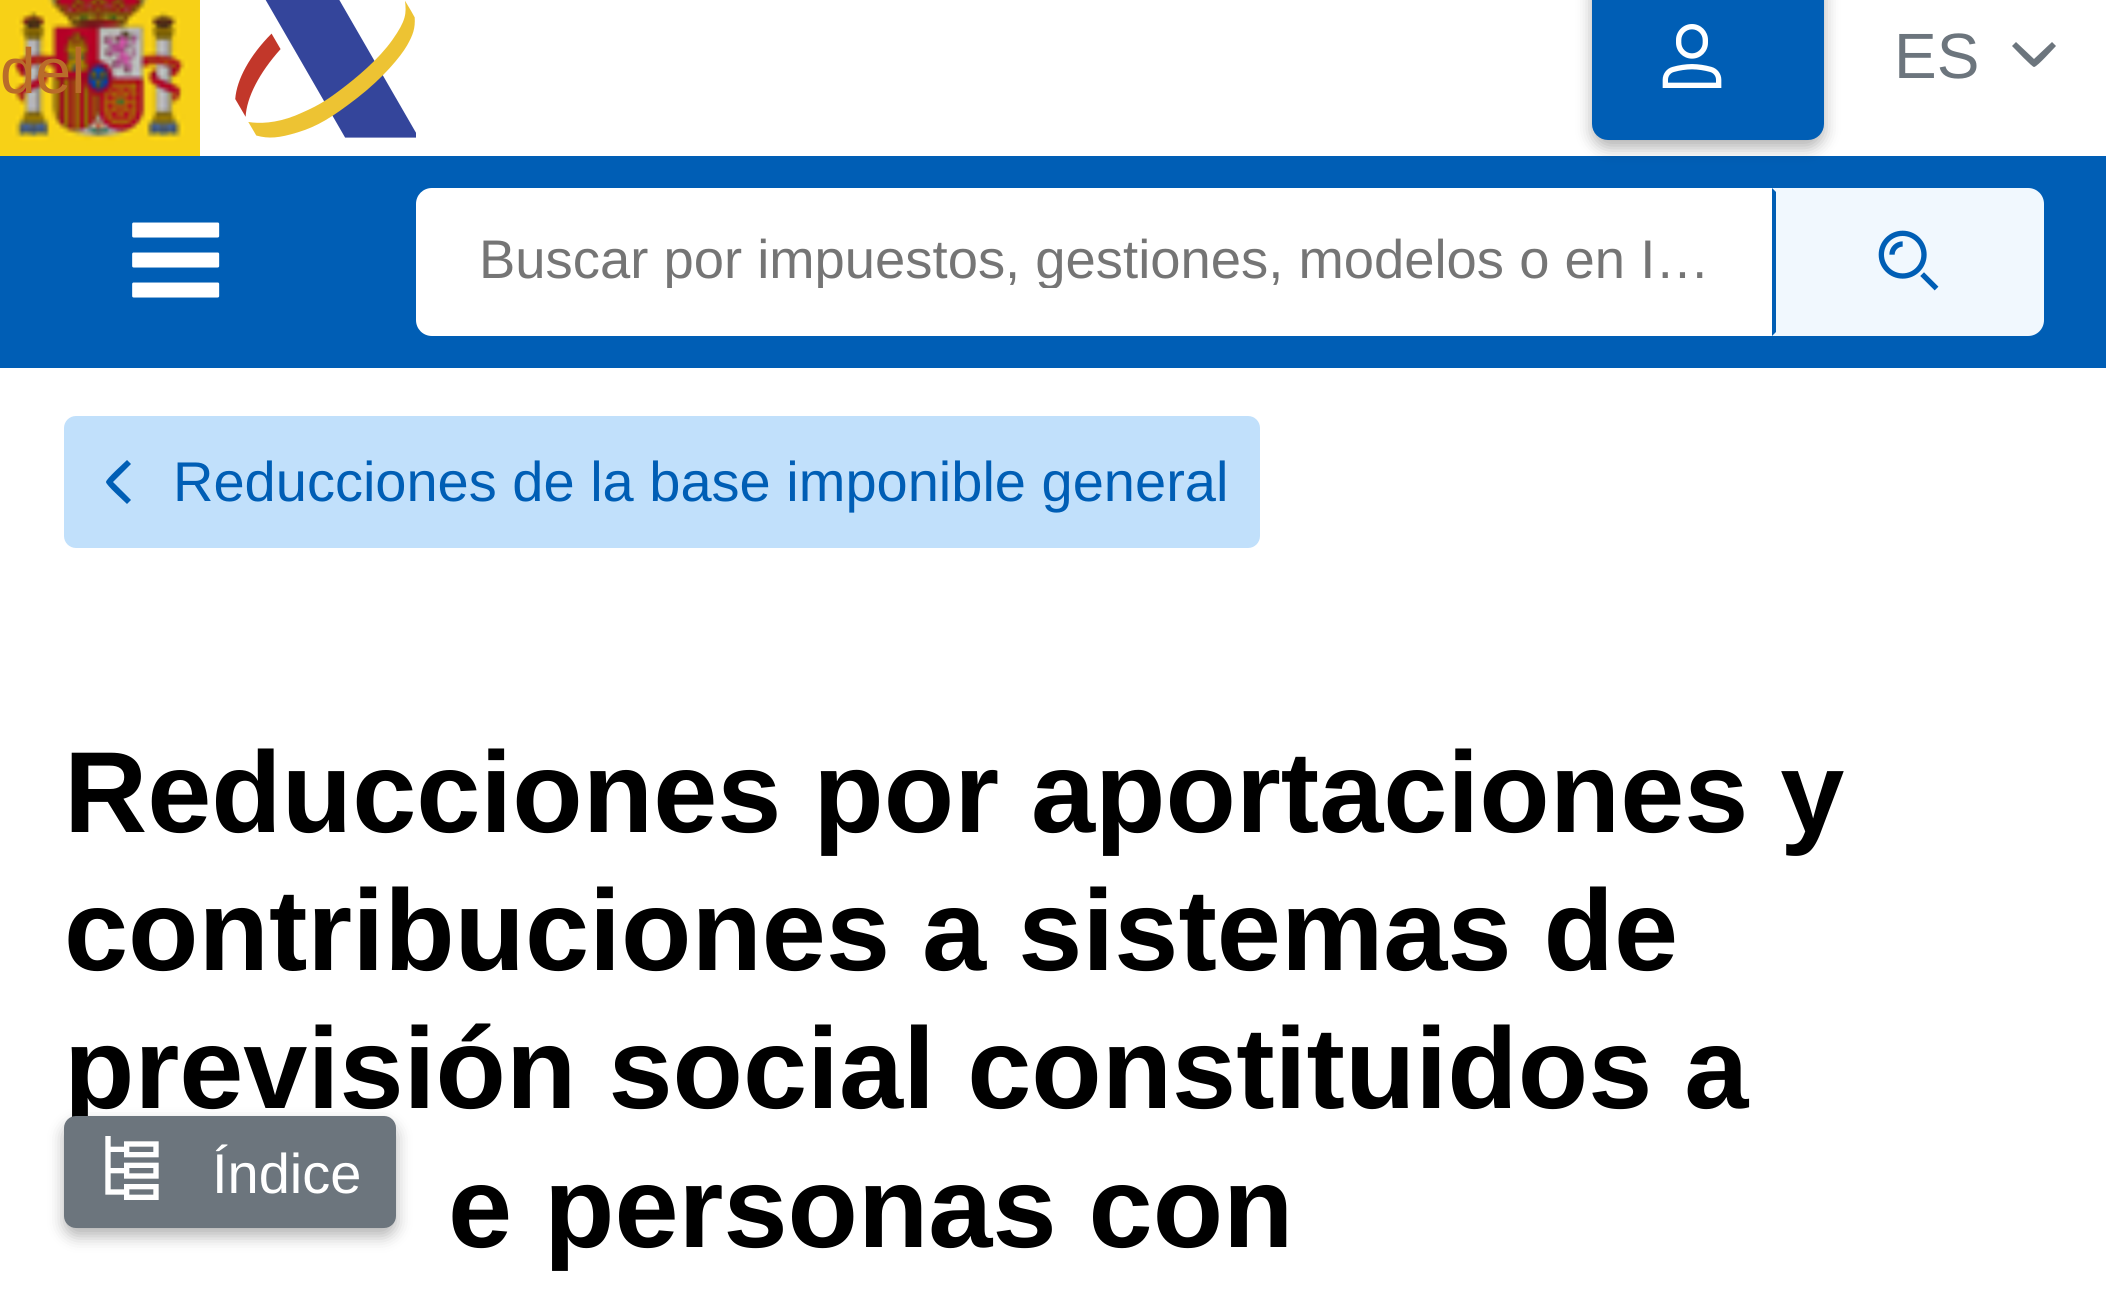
#include <cairo/cairo.h>
#include <math.h>
#include <stddef.h>

typedef struct { double x, y; const char *s; } line_t;
static cairo_t *cr;

static void rgb(unsigned color)
{
	cairo_set_source_rgb(cr, (color >> 16) / 255.0, (color >> 8 & 255) / 255.0, (color & 255) / 255.0);
}

static void rrect(double x, double y, double w, double h, double r)
{
	cairo_new_sub_path(cr);
	cairo_arc(cr, x + w - r, y + h - r, r, 0, M_PI / 2);
	cairo_arc(cr, x + r, y + h - r, r, M_PI / 2, M_PI);
	cairo_arc(cr, x + r, y + r, r, M_PI, 1.5 * M_PI);
	cairo_arc(cr, x + w - r, y + r, r, 1.5 * M_PI, 2 * M_PI);
	cairo_close_path(cr);
}

static void soft_shadow(double x, double y, double w, double h, double r, double blur, double alpha)
{
	cairo_push_group_with_content(cr, CAIRO_CONTENT_ALPHA);
	cairo_set_operator(cr, CAIRO_OPERATOR_SOURCE);
	for (int i = 15; i >= -15 && fmin(w, h) + blur * i / 3 > 0; i -= 2) {
		double e = blur * i / 6;
		cairo_set_source_rgba(cr, 0, 0, 0, alpha * erfc((i - 1) / 8.5) / 2);
		rrect(x - e, y - e, w + 2 * e, h + 2 * e, fmax(0, fmin(r + e + blur * .6, fmin(w, h) / 2 + e)));
		cairo_fill(cr);
	}
	cairo_pattern_t *soft = cairo_pop_group(cr);
	cairo_mask(cr, soft);
	cairo_pattern_destroy(soft);
}

static void image(const char *path, double x, double y, double w, double h)
{
	cairo_surface_t *image = cairo_image_surface_create_from_png(path);
	cairo_save(cr);
	cairo_set_source_surface(cr, image, x, y);
	cairo_rectangle(cr, x, y, w, h);
	cairo_fill(cr);
	cairo_restore(cr);
	cairo_surface_destroy(image);
}

int main(void) {
	cairo_surface_t *surface = cairo_image_surface_create(CAIRO_FORMAT_RGB24, 2106, 1290);
	cr = cairo_create(surface);
	cairo_font_options_t *options = cairo_font_options_create();
	cairo_font_options_set_hint_metrics(options, CAIRO_HINT_METRICS_OFF);
	cairo_font_options_set_hint_style(options, CAIRO_HINT_STYLE_NONE);
	cairo_set_font_options(cr, options);
	cairo_set_miter_limit(cr, 4);
	rgb(0xffffff);
	cairo_paint(cr);
	image("img/1.png", 0, 0, 200, 156);
	image("img/2.png", 235, 0, 181, 138);
	rgb(0x005eb5);
	cairo_rectangle(cr, 0, 156, 2106, 212);
	cairo_fill(cr);
	rgb(0x000000);
	soft_shadow(1592, -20, 232, 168, 16, 8, 0.3);
	rgb(0x005eb5);
	rrect(1594, -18, 228, 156, 14);
	cairo_fill_preserve(cr);
	cairo_set_line_width(cr, 4);
	cairo_stroke(cr);
	image("img/3.png", 1662, 24, 60, 64);
	rgb(0x6c757d);
	cairo_new_path(cr);
	cairo_move_to(cr, 2034, 67);
	cairo_curve_to(cr, 2032, 67, 2015, 49, 2012, 46);
	cairo_line_to(cr, 2016, 42);
	cairo_line_to(cr, 2034, 59);
	cairo_line_to(cr, 2052, 42);
	cairo_line_to(cr, 2056, 46);
	cairo_curve_to(cr, 2053, 49, 2037, 67, 2034, 67);
	cairo_close_path(cr);
	cairo_fill(cr);
	image("img/4.png", 132, 222, 88, 76);
	rgb(0xffffff);
	cairo_new_path(cr);
	cairo_move_to(cr, 432, 188);
	cairo_line_to(cr, 1776, 188);
	cairo_line_to(cr, 1776, 336);
	cairo_line_to(cr, 432, 336);
	cairo_curve_to(cr, 423, 336, 416, 329, 416, 320);
	cairo_line_to(cr, 416, 204);
	cairo_curve_to(cr, 416, 195, 423, 188, 432, 188);
	cairo_close_path(cr);
	cairo_fill(cr);
	rgb(0xf1f8fe);
	cairo_new_path(cr);
	cairo_move_to(cr, 1772, 188);
	cairo_line_to(cr, 2028, 188);
	cairo_curve_to(cr, 2037, 188, 2044, 195, 2044, 204);
	cairo_line_to(cr, 2044, 320);
	cairo_curve_to(cr, 2044, 329, 2037, 336, 2028, 336);
	cairo_line_to(cr, 1772, 336);
	cairo_close_path(cr);
	cairo_fill(cr);
	rgb(0x005eb5);
	cairo_new_path(cr);
	cairo_move_to(cr, 1772, 188);
	cairo_line_to(cr, 1772, 336);
	cairo_line_to(cr, 1776, 332);
	cairo_line_to(cr, 1776, 192);
	cairo_close_path(cr);
	cairo_fill(cr);
	image("img/5.png", 1878, 230, 61, 61);
	rgb(0xc1e0fb);
	rrect(64, 416, 1196, 132, 12);
	cairo_fill(cr);
	rgb(0x005eb5);
	cairo_new_path(cr);
	cairo_move_to(cr, 106, 482);
	cairo_curve_to(cr, 106, 479, 124, 463, 127, 460);
	cairo_line_to(cr, 131, 464);
	cairo_line_to(cr, 113, 482);
	cairo_line_to(cr, 131, 500);
	cairo_line_to(cr, 127, 504);
	cairo_curve_to(cr, 124, 501, 106, 485, 106, 482);
	cairo_close_path(cr);
	cairo_fill(cr);
	rgb(0x000000);
	soft_shadow(64, 1124, 332, 112, 12, 8, 0.3);
	cairo_select_font_face(cr, "Liberation Sans", CAIRO_FONT_SLANT_NORMAL, CAIRO_FONT_WEIGHT_NORMAL);
	cairo_set_font_size(cr, 64);
	rgb(0xb96c2a);
	cairo_move_to(cr, 0, 93);
	cairo_show_text(cr, "del");
	rgb(0x6c757d);
	cairo_move_to(cr, 1894, 78);
	cairo_show_text(cr, "ES");
	cairo_save(cr);
	cairo_rectangle(cr, 480, 228, 1240, 60);
	cairo_clip(cr);
	cairo_set_font_size(cr, 54.4);
	rgb(0x757575);
	cairo_move_to(cr, 479, 278);
	cairo_show_text(cr, "Buscar por impuestos, gestiones, modelos o en I…");
	cairo_restore(cr);
	cairo_set_font_size(cr, 56);
	rgb(0x005eb5);
	cairo_move_to(cr, 173, 501);
	cairo_show_text(cr, "Reducciones de la base imponible general");
	cairo_select_font_face(cr, "Liberation Sans", CAIRO_FONT_SLANT_NORMAL, CAIRO_FONT_WEIGHT_BOLD);
	cairo_set_font_size(cr, 115.25);
	rgb(0x000000);
	{
		static const line_t items[] = {
			{64, 832, "Reducciones por aportaciones y"},
			{64, 970, "contribuciones a sistemas de"},
			{64, 1108, "previsión social constituidos a"},
			{448, 1247, "e personas con"},
		};
		for (size_t i = 0; i < sizeof items / sizeof *items; i++) {
			cairo_move_to(cr, items[i].x, items[i].y);
			cairo_show_text(cr, items[i].s);
		}
	}
	rgb(0x6c757d);
	rrect(66, 1118, 328, 108, 10);
	cairo_fill_preserve(cr);
	cairo_stroke(cr);
	image("img/6.png", 105, 1136, 54, 64);
	cairo_select_font_face(cr, "Liberation Sans", CAIRO_FONT_SLANT_NORMAL, CAIRO_FONT_WEIGHT_NORMAL);
	cairo_set_font_size(cr, 56);
	rgb(0xffffff);
	cairo_move_to(cr, 212, 1193);
	cairo_show_text(cr, "Índice");
	cairo_surface_write_to_png(surface, "page.png");
	cairo_font_options_destroy(options);
	cairo_destroy(cr);
	cairo_surface_destroy(surface);
	return 0;
}
